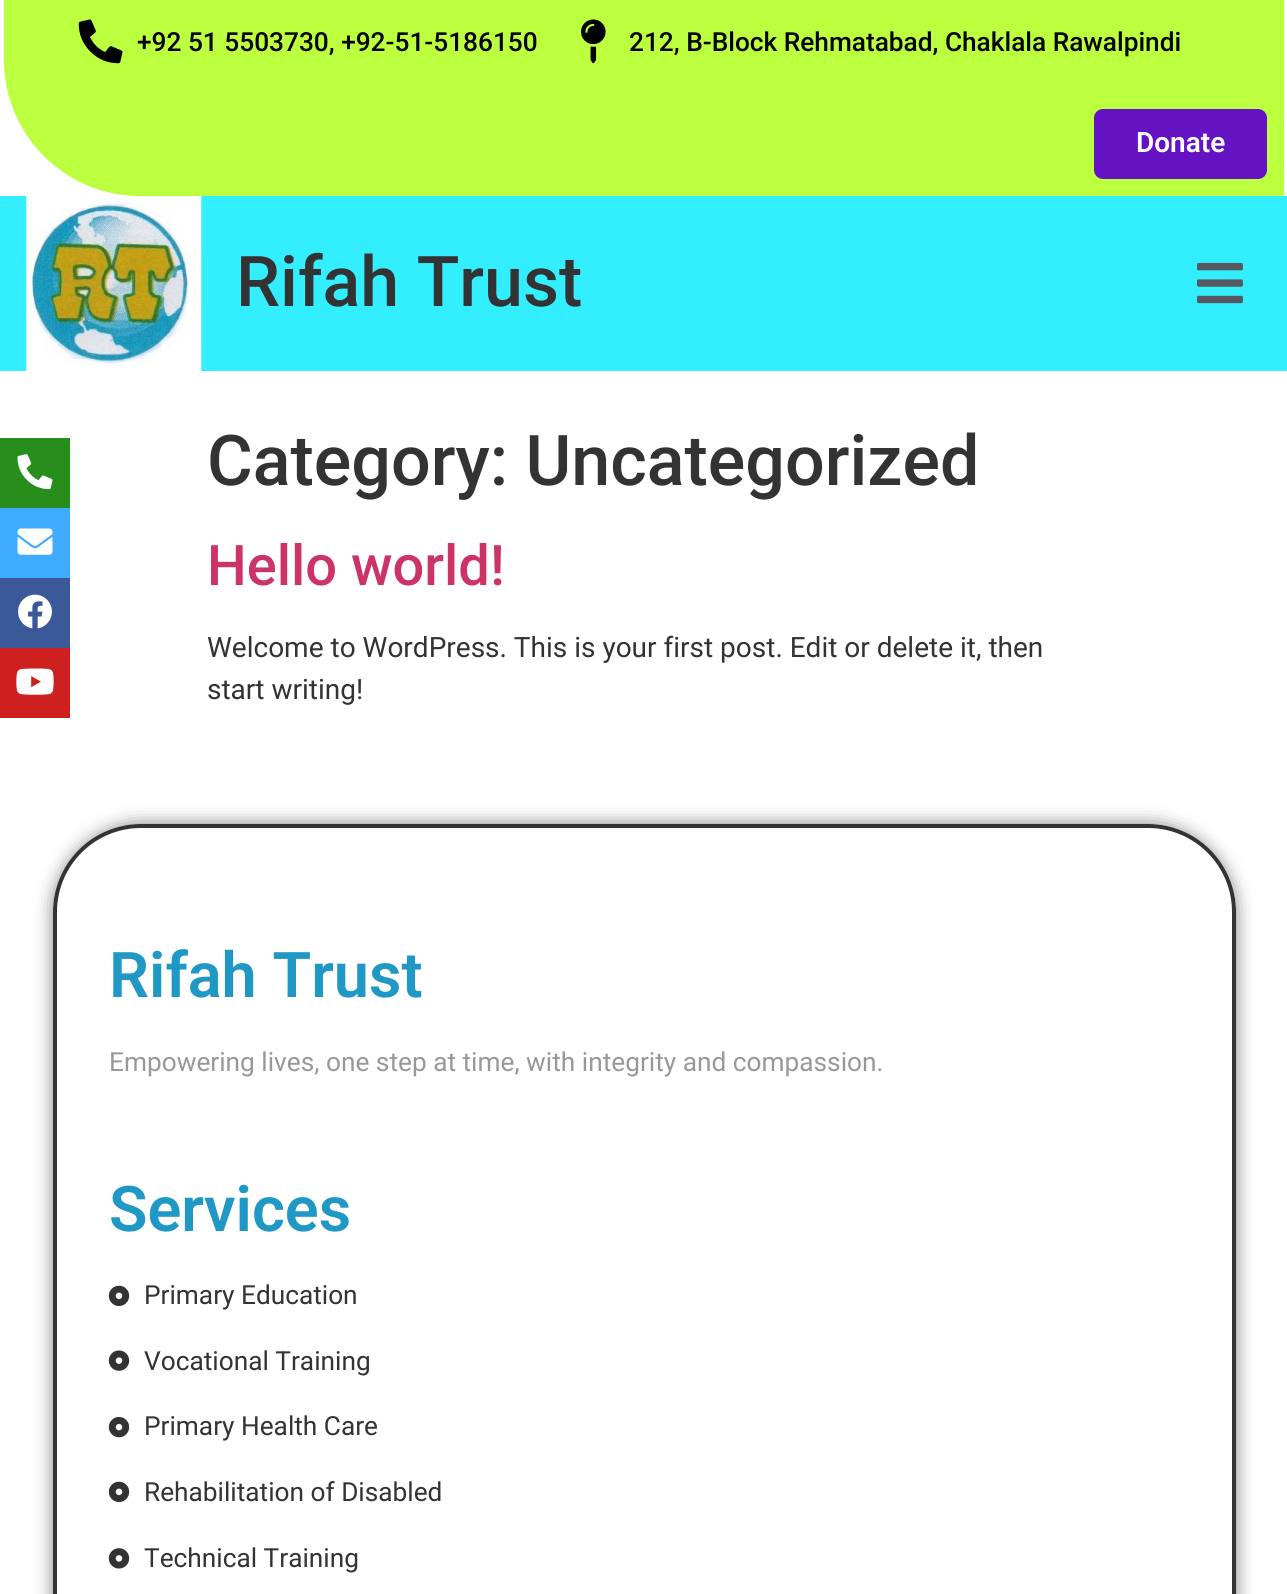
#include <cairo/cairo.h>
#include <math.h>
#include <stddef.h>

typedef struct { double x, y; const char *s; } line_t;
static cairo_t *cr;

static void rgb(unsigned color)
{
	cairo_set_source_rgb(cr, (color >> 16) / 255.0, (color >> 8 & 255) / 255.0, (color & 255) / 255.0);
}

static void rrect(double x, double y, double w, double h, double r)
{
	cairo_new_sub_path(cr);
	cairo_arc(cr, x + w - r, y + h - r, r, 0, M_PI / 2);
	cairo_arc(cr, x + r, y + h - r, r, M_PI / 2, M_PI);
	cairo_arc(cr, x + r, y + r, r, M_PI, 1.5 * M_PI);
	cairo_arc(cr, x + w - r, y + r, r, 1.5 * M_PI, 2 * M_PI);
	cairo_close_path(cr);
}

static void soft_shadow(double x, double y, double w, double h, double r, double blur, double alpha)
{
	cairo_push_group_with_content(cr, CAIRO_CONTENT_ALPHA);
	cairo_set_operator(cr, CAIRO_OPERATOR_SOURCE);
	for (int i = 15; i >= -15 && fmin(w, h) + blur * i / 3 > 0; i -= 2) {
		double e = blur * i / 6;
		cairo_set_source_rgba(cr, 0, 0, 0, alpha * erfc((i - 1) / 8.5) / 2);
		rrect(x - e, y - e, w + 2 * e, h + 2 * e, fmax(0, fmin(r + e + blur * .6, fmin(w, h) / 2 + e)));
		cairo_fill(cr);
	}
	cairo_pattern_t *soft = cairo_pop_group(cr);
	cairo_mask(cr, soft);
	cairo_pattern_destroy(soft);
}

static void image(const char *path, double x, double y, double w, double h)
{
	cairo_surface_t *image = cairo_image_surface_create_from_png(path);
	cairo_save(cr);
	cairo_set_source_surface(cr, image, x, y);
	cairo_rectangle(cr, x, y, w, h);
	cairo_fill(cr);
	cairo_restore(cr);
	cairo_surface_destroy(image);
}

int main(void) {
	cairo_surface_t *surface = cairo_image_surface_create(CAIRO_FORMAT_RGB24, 1287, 1594);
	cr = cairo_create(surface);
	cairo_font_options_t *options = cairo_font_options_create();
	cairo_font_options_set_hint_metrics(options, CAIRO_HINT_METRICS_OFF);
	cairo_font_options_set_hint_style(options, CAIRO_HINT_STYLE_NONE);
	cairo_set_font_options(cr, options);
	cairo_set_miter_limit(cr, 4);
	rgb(0xffffff);
	cairo_paint(cr);
	rgb(0xbbff3e);
	cairo_new_path(cr);
	cairo_move_to(cr, 2, -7);
	cairo_line_to(cr, 1286, -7);
	cairo_line_to(cr, 1286, 198);
	cairo_line_to(cr, 140, 198);
	cairo_curve_to(cr, 64, 198, 2, 136, 2, 60);
	cairo_close_path(cr);
	cairo_fill_preserve(cr);
	rgb(0xffffff);
	cairo_set_line_width(cr, 4);
	cairo_stroke(cr);
	image("img/1.png", 78, 19, 45, 45);
	image("img/2.png", 581, 19, 25, 45);
	rgb(0x6513c2);
	rrect(1094, 109, 173, 70, 9);
	cairo_fill(cr);
	rgb(0x33eeff);
	cairo_rectangle(cr, 0, 196, 1287, 175);
	cairo_fill(cr);
	image("img/3.png", 26, 196, 176, 175);
	image("img/4.png", 1197, 262, 46, 42);
	rgb(0x278d1b);
	cairo_rectangle(cr, 0, 438, 70, 70);
	cairo_fill(cr);
	image("img/5.png", 17, 454, 36, 36);
	rgb(0x3facff);
	cairo_rectangle(cr, 0, 508, 70, 70);
	cairo_fill(cr);
	image("img/6.png", 17, 528, 36, 27);
	rgb(0x3b5998);
	cairo_rectangle(cr, 0, 578, 70, 70);
	cairo_fill(cr);
	image("img/7.png", 18, 594, 34, 35);
	rgb(0xcd201f);
	cairo_rectangle(cr, 0, 648, 70, 70);
	cairo_fill(cr);
	image("img/8.png", 16, 668, 38, 27);
	cairo_save(cr);
	cairo_set_fill_rule(cr, CAIRO_FILL_RULE_EVEN_ODD);
	cairo_new_path(cr);
	cairo_move_to(cr, 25, 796);
	cairo_line_to(cr, 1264, 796);
	cairo_line_to(cr, 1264, 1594);
	cairo_line_to(cr, 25, 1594);
	cairo_close_path(cr);
	cairo_move_to(cr, 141, 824);
	cairo_line_to(cr, 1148, 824);
	cairo_curve_to(cr, 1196.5, 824, 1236, 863.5, 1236, 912);
	cairo_line_to(cr, 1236, 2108);
	cairo_curve_to(cr, 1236, 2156.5, 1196.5, 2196, 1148, 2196);
	cairo_line_to(cr, 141, 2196);
	cairo_curve_to(cr, 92.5, 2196, 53, 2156.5, 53, 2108);
	cairo_line_to(cr, 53, 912);
	cairo_curve_to(cr, 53, 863.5, 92.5, 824, 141, 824);
	cairo_close_path(cr);
	cairo_clip(cr);
	rgb(0x000000);
	soft_shadow(53, 824, 1183, 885, 88, 9, 0.5);
	cairo_restore(cr);
	rrect(55, 826, 1179, 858, 86);
	rgb(0x333333);
	cairo_stroke(cr);
	image("img/9.png", 108, 1285, 22, 21);
	image("img/10.png", 108, 1350, 22, 21);
	image("img/11.png", 108, 1417, 22, 21);
	image("img/9.png", 108, 1481, 22, 21);
	image("img/12.png", 108, 1548, 22, 21);
	cairo_select_font_face(cr, "Roboto Medium", CAIRO_FONT_SLANT_NORMAL, CAIRO_FONT_WEIGHT_NORMAL);
	cairo_set_font_size(cr, 26.25);
	rgb(0x000000);
	cairo_move_to(cr, 137, 51);
	cairo_show_text(cr, "+92 51 5503730, +92-51-5186150");
	cairo_move_to(cr, 629, 51);
	cairo_show_text(cr, "212, B-Block Rehmatabad, Chaklala Rawalpindi");
	cairo_select_font_face(cr, "Roboto SemiBold", CAIRO_FONT_SLANT_NORMAL, CAIRO_FONT_WEIGHT_NORMAL);
	cairo_set_font_size(cr, 28);
	rgb(0xffffff);
	cairo_move_to(cr, 1136, 152);
	cairo_show_text(cr, "Donate");
	cairo_select_font_face(cr, "Roboto Medium", CAIRO_FONT_SLANT_NORMAL, CAIRO_FONT_WEIGHT_NORMAL);
	cairo_set_font_size(cr, 70);
	rgb(0x333333);
	cairo_move_to(cr, 236, 306);
	cairo_show_text(cr, "Rifah Trust");
	cairo_move_to(cr, 207, 485);
	cairo_show_text(cr, "Category: Uncategorized");
	cairo_set_font_size(cr, 56);
	rgb(0xcc3366);
	cairo_move_to(cr, 207, 585);
	cairo_show_text(cr, "Hello world!");
	cairo_select_font_face(cr, "Roboto", CAIRO_FONT_SLANT_NORMAL, CAIRO_FONT_WEIGHT_NORMAL);
	cairo_set_font_size(cr, 28);
	rgb(0x333333);
	cairo_move_to(cr, 207, 657);
	cairo_show_text(cr, "Welcome to WordPress. This is your first post. Edit or delete it, then");
	cairo_move_to(cr, 207, 699);
	cairo_show_text(cr, "start writing!");
	cairo_select_font_face(cr, "Roboto SemiBold", CAIRO_FONT_SLANT_NORMAL, CAIRO_FONT_WEIGHT_NORMAL);
	cairo_set_font_size(cr, 63);
	rgb(0x1f98c5);
	cairo_move_to(cr, 109, 997);
	cairo_show_text(cr, "Rifah Trust");
	cairo_select_font_face(cr, "Roboto", CAIRO_FONT_SLANT_NORMAL, CAIRO_FONT_WEIGHT_NORMAL);
	cairo_set_font_size(cr, 26.25);
	rgb(0x989898);
	cairo_move_to(cr, 109, 1071);
	cairo_show_text(cr, "Empowering lives, one step at time, with integrity and compassion.");
	cairo_select_font_face(cr, "Roboto SemiBold", CAIRO_FONT_SLANT_NORMAL, CAIRO_FONT_WEIGHT_NORMAL);
	cairo_set_font_size(cr, 63);
	rgb(0x1f98c5);
	cairo_move_to(cr, 109, 1231);
	cairo_show_text(cr, "Services");
	cairo_select_font_face(cr, "Roboto", CAIRO_FONT_SLANT_NORMAL, CAIRO_FONT_WEIGHT_NORMAL);
	cairo_set_font_size(cr, 26.25);
	rgb(0x333333);
	{
		static const line_t items[] = {
			{144, 1304, "Primary Education"},
			{144, 1370, "Vocational Training"},
			{144, 1435, "Primary Health Care"},
			{144, 1501, "Rehabilitation of Disabled"},
			{144, 1567, "Technical Training"},
		};
		for (size_t i = 0; i < sizeof items / sizeof *items; i++) {
			cairo_move_to(cr, items[i].x, items[i].y);
			cairo_show_text(cr, items[i].s);
		}
	}
	cairo_surface_write_to_png(surface, "page.png");
	cairo_font_options_destroy(options);
	cairo_destroy(cr);
	cairo_surface_destroy(surface);
	return 0;
}
